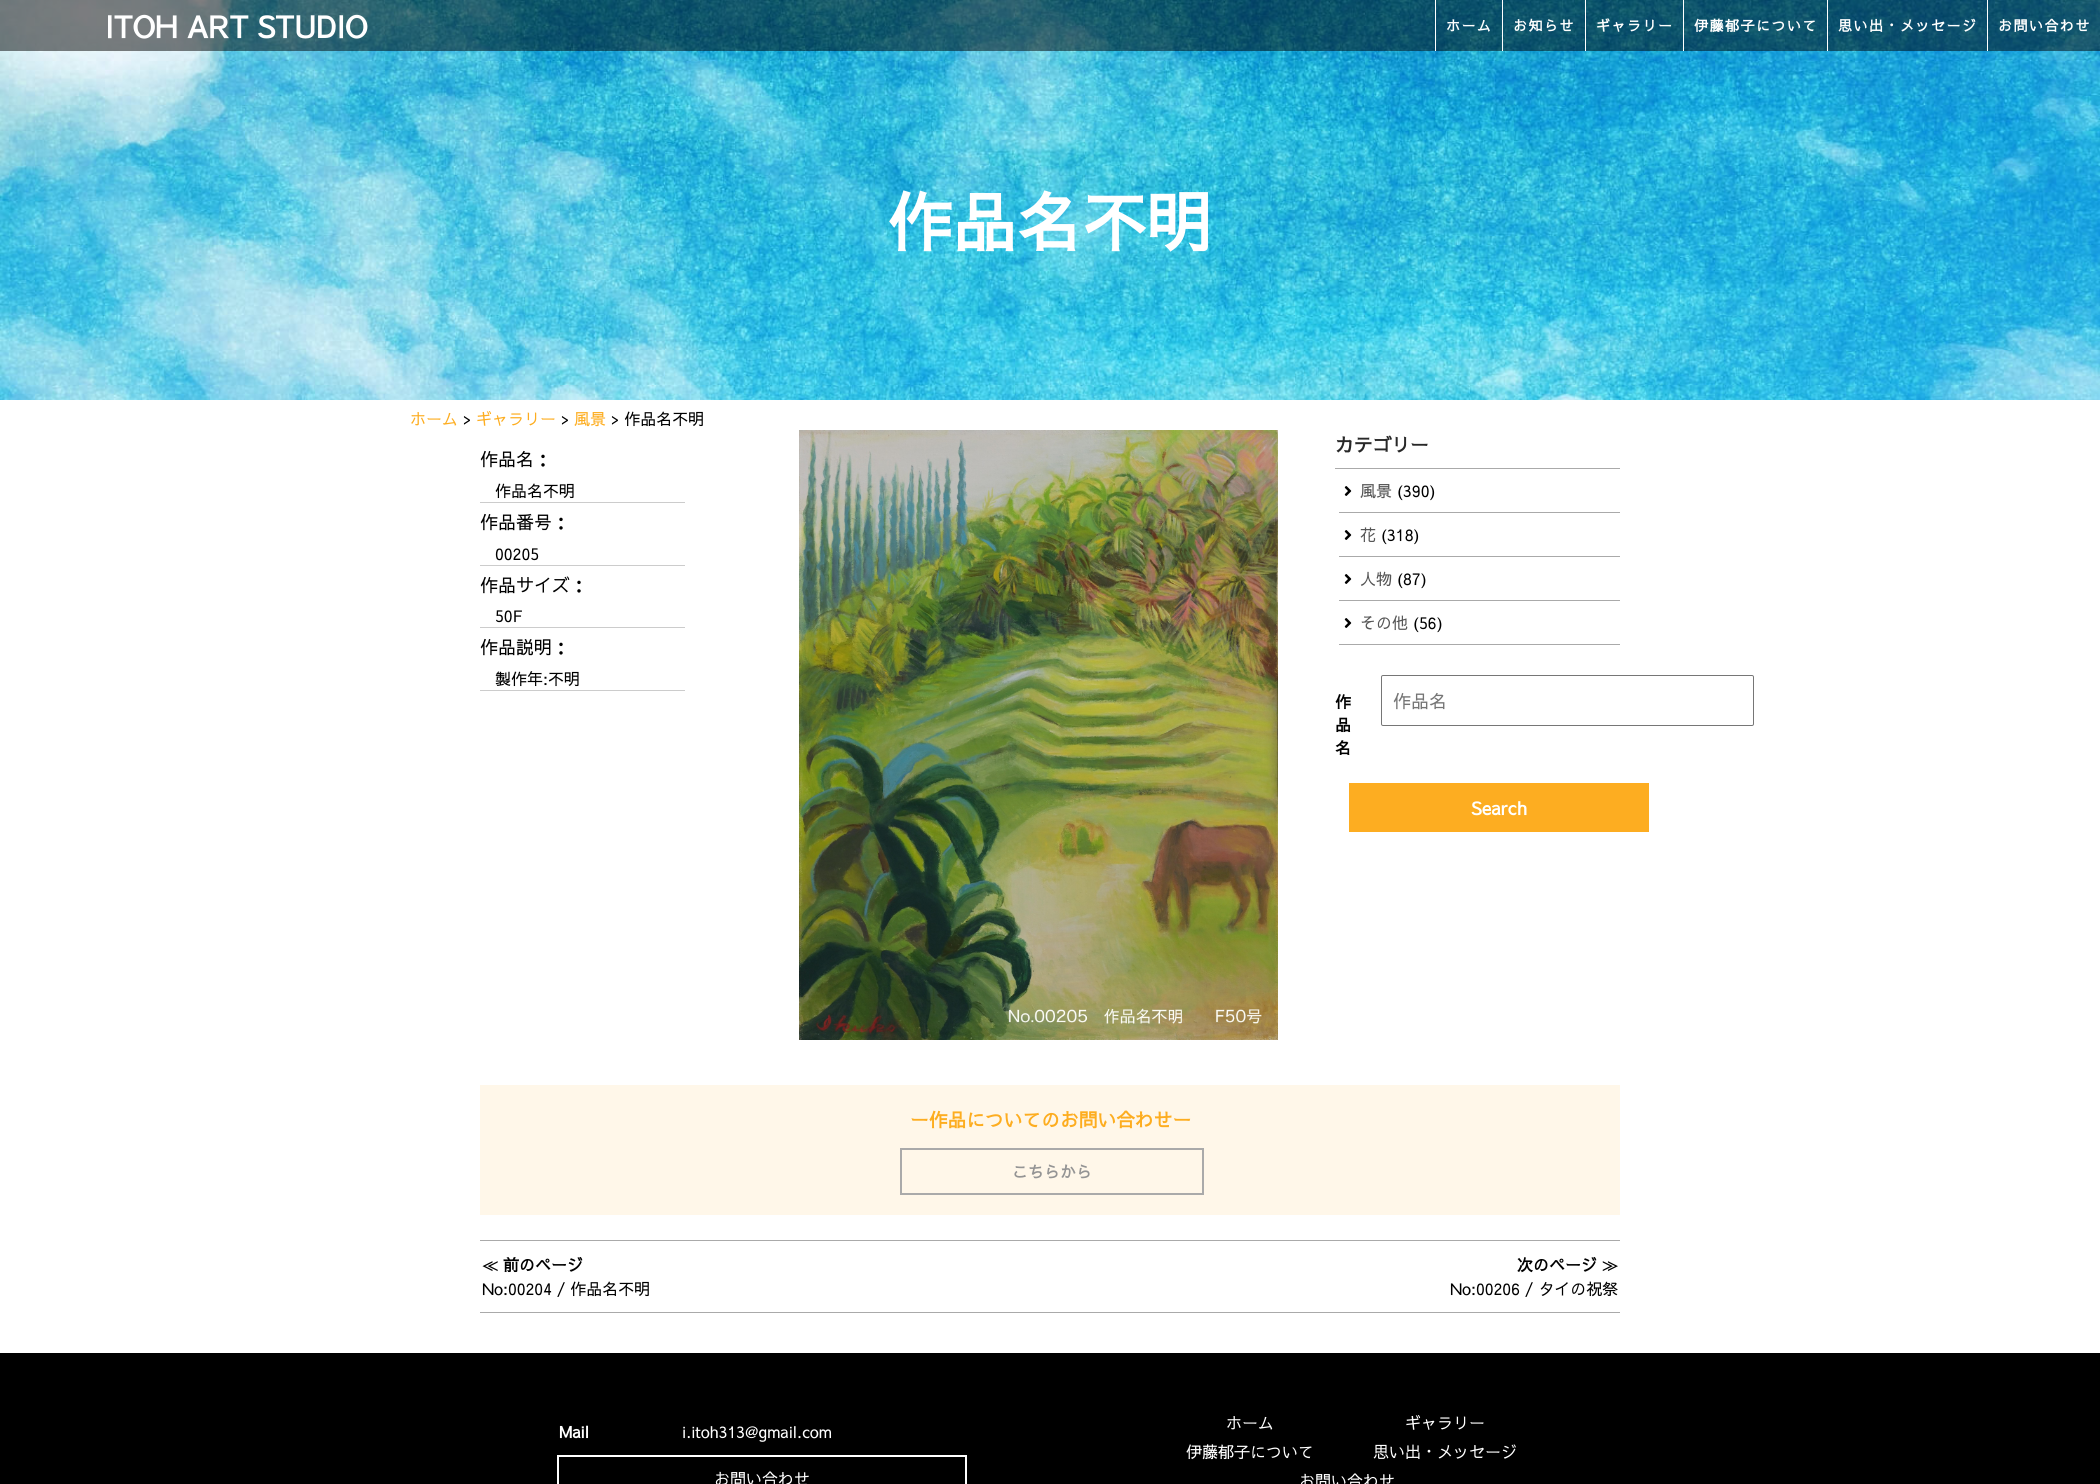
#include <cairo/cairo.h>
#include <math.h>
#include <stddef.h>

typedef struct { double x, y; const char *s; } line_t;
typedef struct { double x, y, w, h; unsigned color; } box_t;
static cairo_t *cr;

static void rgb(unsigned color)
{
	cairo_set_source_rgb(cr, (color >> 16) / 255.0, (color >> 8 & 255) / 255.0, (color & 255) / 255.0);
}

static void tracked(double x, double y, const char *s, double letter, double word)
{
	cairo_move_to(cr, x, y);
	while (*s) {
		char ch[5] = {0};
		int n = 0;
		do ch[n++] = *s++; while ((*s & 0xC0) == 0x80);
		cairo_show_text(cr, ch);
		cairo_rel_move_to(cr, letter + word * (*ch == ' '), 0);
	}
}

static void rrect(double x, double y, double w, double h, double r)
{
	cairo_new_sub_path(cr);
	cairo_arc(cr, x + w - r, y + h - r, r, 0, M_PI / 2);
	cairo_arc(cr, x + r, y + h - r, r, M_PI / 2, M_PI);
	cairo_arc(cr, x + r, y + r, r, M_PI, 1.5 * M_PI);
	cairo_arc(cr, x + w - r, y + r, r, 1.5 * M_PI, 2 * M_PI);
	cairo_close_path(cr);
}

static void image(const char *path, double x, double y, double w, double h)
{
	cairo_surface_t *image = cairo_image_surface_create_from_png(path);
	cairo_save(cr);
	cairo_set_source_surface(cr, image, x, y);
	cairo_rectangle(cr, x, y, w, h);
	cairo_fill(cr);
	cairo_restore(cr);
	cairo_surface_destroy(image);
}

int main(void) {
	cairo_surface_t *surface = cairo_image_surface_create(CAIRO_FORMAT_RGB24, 2100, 1484);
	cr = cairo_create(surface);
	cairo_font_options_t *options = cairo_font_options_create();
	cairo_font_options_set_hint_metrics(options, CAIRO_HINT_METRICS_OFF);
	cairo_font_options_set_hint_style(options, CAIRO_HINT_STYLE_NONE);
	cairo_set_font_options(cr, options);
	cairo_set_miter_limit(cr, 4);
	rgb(0xffffff);
	cairo_paint(cr);
	image("img/1.png", 0, 0, 2100, 400);
	cairo_set_source_rgba(cr, 0, 0, 0, 0.5);
	cairo_rectangle(cr, 0, 0, 2100, 51);
	cairo_fill(cr);
	rgb(0xffffff);
	cairo_rectangle(cr, 1502, 0, 1, 51);
	cairo_fill(cr);
	cairo_rectangle(cr, 1435, 0, 1, 51);
	cairo_fill(cr);
	cairo_rectangle(cr, 1585, 0, 1, 51);
	cairo_fill(cr);
	cairo_rectangle(cr, 1683, 0, 1, 51);
	cairo_fill(cr);
	cairo_rectangle(cr, 1827, 0, 1, 51);
	cairo_fill(cr);
	cairo_rectangle(cr, 1987, 0, 1, 51);
	cairo_fill(cr);
	rgb(0xcccccc);
	cairo_rectangle(cr, 480, 502, 205, 1);
	cairo_fill(cr);
	cairo_rectangle(cr, 480, 565, 205, 1);
	cairo_fill(cr);
	cairo_rectangle(cr, 480, 627, 205, 1);
	cairo_fill(cr);
	cairo_rectangle(cr, 480, 690, 205, 1);
	cairo_fill(cr);
	image("img/2.png", 799, 430, 479, 610);
	rgb(0xaaaaaa);
	cairo_rectangle(cr, 1335, 468, 285, 1);
	cairo_fill(cr);
	cairo_rectangle(cr, 1339, 512, 281, 1);
	cairo_fill(cr);
	image("img/3.png", 1344, 486, 8, 10);
	cairo_rectangle(cr, 1339, 556, 281, 1);
	cairo_fill(cr);
	image("img/3.png", 1344, 530, 8, 10);
	cairo_rectangle(cr, 1339, 600, 281, 1);
	cairo_fill(cr);
	image("img/3.png", 1344, 574, 8, 10);
	cairo_rectangle(cr, 1339, 644, 281, 1);
	cairo_fill(cr);
	image("img/3.png", 1344, 618, 8, 10);
	rrect(1381.5, 675.5, 372, 50, 1.5);
	rgb(0x767676);
	cairo_set_line_width(cr, 1);
	cairo_stroke(cr);
	rgb(0xfdad21);
	cairo_rectangle(cr, 1349, 783, 300, 49);
	cairo_fill(cr);
	rgb(0xfff7e9);
	cairo_rectangle(cr, 480, 1085, 1140, 130);
	cairo_fill(cr);
	cairo_rectangle(cr, 901, 1149, 302, 45);
	rgb(0xaaaaaa);
	cairo_set_line_width(cr, 2);
	cairo_stroke(cr);
	{
		static const box_t items[] = {
			{480, 1240, 1140, 1, 0xaaaaaa},
			{480, 1312, 1140, 1, 0xaaaaaa},
			{0, 1353, 2100, 131, 0x000000},
		};
		for (size_t i = 0; i < sizeof items / sizeof *items; i++) {
			rgb(items[i].color);
			cairo_rectangle(cr, items[i].x, items[i].y, items[i].w, items[i].h);
			cairo_fill(cr);
		}
	}
	cairo_rectangle(cr, 558, 1456, 408, 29);
	rgb(0xffffff);
	cairo_stroke(cr);
	cairo_select_font_face(cr, "Sawarabi Gothic", CAIRO_FONT_SLANT_NORMAL, CAIRO_FONT_WEIGHT_BOLD);
	cairo_set_font_size(cr, 30);
	cairo_move_to(cr, 105, 38);
	cairo_show_text(cr, "ITOH ART STUDIO");
	cairo_set_font_size(cr, 14);
	{
		static const line_t items[] = {
			{1446, 31, "ホーム"},
			{1513, 31, "お知らせ"},
			{1596, 31, "ギャラリー"},
			{1694, 31, "伊藤郁子について"},
			{1838, 31, "思い出・メッセージ"},
			{1998, 31, "お問い合わせ"},
		};
		for (size_t i = 0; i < sizeof items / sizeof *items; i++) {
			tracked(items[i].x, items[i].y, items[i].s, 1.5, 0);
		}
	}
	cairo_set_font_size(cr, 65);
	cairo_move_to(cr, 887, 247);
	cairo_show_text(cr, "作品名不明");
	cairo_select_font_face(cr, "Sawarabi Gothic", CAIRO_FONT_SLANT_NORMAL, CAIRO_FONT_WEIGHT_NORMAL);
	cairo_set_font_size(cr, 16);
	rgb(0xfdad20);
	cairo_move_to(cr, 410, 425);
	cairo_show_text(cr, "ホーム");
	rgb(0x000000);
	cairo_move_to(cr, 463, 425);
	cairo_show_text(cr, ">");
	rgb(0xfdad20);
	cairo_move_to(cr, 476, 425);
	cairo_show_text(cr, "ギャラリー");
	rgb(0x000000);
	cairo_move_to(cr, 561, 425);
	cairo_show_text(cr, ">");
	rgb(0xfdad20);
	cairo_move_to(cr, 574, 425);
	cairo_show_text(cr, "風景");
	rgb(0x000000);
	cairo_move_to(cr, 611, 425);
	cairo_show_text(cr, "> 作品名不明");
	cairo_set_font_size(cr, 18);
	cairo_move_to(cr, 480, 466);
	cairo_show_text(cr, "作品名：");
	cairo_set_font_size(cr, 16);
	cairo_move_to(cr, 495, 497);
	cairo_show_text(cr, "作品名不明");
	cairo_set_font_size(cr, 18);
	cairo_move_to(cr, 480, 529);
	cairo_show_text(cr, "作品番号：");
	cairo_set_font_size(cr, 16);
	cairo_move_to(cr, 495, 560);
	cairo_show_text(cr, "00205");
	cairo_set_font_size(cr, 18);
	cairo_move_to(cr, 480, 592);
	cairo_show_text(cr, "作品サイズ：");
	cairo_set_font_size(cr, 16);
	cairo_move_to(cr, 495, 622);
	cairo_show_text(cr, "50F");
	cairo_set_font_size(cr, 18);
	cairo_move_to(cr, 480, 654);
	cairo_show_text(cr, "作品説明：");
	cairo_set_font_size(cr, 16);
	cairo_move_to(cr, 495, 685);
	cairo_show_text(cr, "製作年:不明");
	cairo_select_font_face(cr, "Sawarabi Gothic", CAIRO_FONT_SLANT_NORMAL, CAIRO_FONT_WEIGHT_BOLD);
	cairo_set_font_size(cr, 18.75);
	rgb(0x282828);
	cairo_move_to(cr, 1335, 452);
	cairo_show_text(cr, "カテゴリー");
	cairo_select_font_face(cr, "Sawarabi Gothic", CAIRO_FONT_SLANT_NORMAL, CAIRO_FONT_WEIGHT_NORMAL);
	cairo_set_font_size(cr, 16);
	rgb(0x555555);
	cairo_move_to(cr, 1360, 497);
	cairo_show_text(cr, "風景");
	rgb(0x000000);
	cairo_move_to(cr, 1397, 497);
	cairo_show_text(cr, "(390)");
	rgb(0x555555);
	cairo_move_to(cr, 1360, 541);
	cairo_show_text(cr, "花");
	rgb(0x000000);
	cairo_move_to(cr, 1381, 541);
	cairo_show_text(cr, "(318)");
	rgb(0x555555);
	cairo_move_to(cr, 1360, 585);
	cairo_show_text(cr, "人物");
	rgb(0x000000);
	cairo_move_to(cr, 1397, 585);
	cairo_show_text(cr, "(87)");
	rgb(0x555555);
	cairo_move_to(cr, 1360, 629);
	cairo_show_text(cr, "その他");
	rgb(0x000000);
	cairo_move_to(cr, 1413, 629);
	cairo_show_text(cr, "(56)");
	cairo_select_font_face(cr, "Sawarabi Gothic", CAIRO_FONT_SLANT_NORMAL, CAIRO_FONT_WEIGHT_BOLD);
	{
		static const line_t items[] = {
			{1335, 708, "作"},
			{1335, 731, "品"},
			{1335, 754, "名"},
		};
		for (size_t i = 0; i < sizeof items / sizeof *items; i++) {
			cairo_move_to(cr, items[i].x, items[i].y);
			cairo_show_text(cr, items[i].s);
		}
	}
	cairo_select_font_face(cr, "Sawarabi Gothic", CAIRO_FONT_SLANT_NORMAL, CAIRO_FONT_WEIGHT_NORMAL);
	cairo_set_font_size(cr, 18);
	rgb(0x757575);
	cairo_move_to(cr, 1393, 708);
	cairo_show_text(cr, "作品名");
	cairo_select_font_face(cr, "Sawarabi Gothic", CAIRO_FONT_SLANT_NORMAL, CAIRO_FONT_WEIGHT_BOLD);
	rgb(0xffffff);
	cairo_move_to(cr, 1471, 815);
	cairo_show_text(cr, "Search");
	cairo_set_font_size(cr, 18.75);
	rgb(0xfdad20);
	cairo_move_to(cr, 910, 1127);
	cairo_show_text(cr, "ー作品についてのお問い合わせー");
	cairo_set_font_size(cr, 16);
	rgb(0x949494);
	cairo_move_to(cr, 1012, 1178);
	cairo_show_text(cr, "こちらから");
	cairo_select_font_face(cr, "WenQuanYi Zen Hei", CAIRO_FONT_SLANT_NORMAL, CAIRO_FONT_WEIGHT_BOLD);
	rgb(0x000000);
	cairo_move_to(cr, 482, 1271);
	cairo_show_text(cr, "≪");
	cairo_select_font_face(cr, "Sawarabi Gothic", CAIRO_FONT_SLANT_NORMAL, CAIRO_FONT_WEIGHT_BOLD);
	cairo_move_to(cr, 503, 1271);
	cairo_show_text(cr, "前のページ");
	cairo_select_font_face(cr, "Sawarabi Gothic", CAIRO_FONT_SLANT_NORMAL, CAIRO_FONT_WEIGHT_NORMAL);
	cairo_move_to(cr, 482, 1295);
	cairo_show_text(cr, "No:00204 / 作品名不明");
	cairo_select_font_face(cr, "Sawarabi Gothic", CAIRO_FONT_SLANT_NORMAL, CAIRO_FONT_WEIGHT_BOLD);
	cairo_move_to(cr, 1517, 1271);
	cairo_show_text(cr, "次のページ");
	cairo_select_font_face(cr, "WenQuanYi Zen Hei", CAIRO_FONT_SLANT_NORMAL, CAIRO_FONT_WEIGHT_BOLD);
	cairo_move_to(cr, 1602, 1271);
	cairo_show_text(cr, "≫");
	cairo_select_font_face(cr, "Sawarabi Gothic", CAIRO_FONT_SLANT_NORMAL, CAIRO_FONT_WEIGHT_NORMAL);
	cairo_move_to(cr, 1450, 1295);
	cairo_show_text(cr, "No:00206 / タイの祝祭");
	cairo_select_font_face(cr, "Sawarabi Gothic", CAIRO_FONT_SLANT_NORMAL, CAIRO_FONT_WEIGHT_BOLD);
	rgb(0xffffff);
	cairo_move_to(cr, 559, 1438);
	cairo_show_text(cr, "Mail");
	cairo_select_font_face(cr, "Sawarabi Gothic", CAIRO_FONT_SLANT_NORMAL, CAIRO_FONT_WEIGHT_NORMAL);
	{
		static const line_t items[] = {
			{682, 1438, "i.itoh313@gmail.com"},
			{714, 1485, "お問い合わせ"},
			{1226, 1429, "ホーム"},
			{1405, 1429, "ギャラリー"},
			{1186, 1458, "伊藤郁子について"},
			{1373, 1458, "思い出・メッセージ"},
			{1299, 1487, "お問い合わせ"},
		};
		for (size_t i = 0; i < sizeof items / sizeof *items; i++) {
			cairo_move_to(cr, items[i].x, items[i].y);
			cairo_show_text(cr, items[i].s);
		}
	}
	cairo_surface_write_to_png(surface, "page.png");
	cairo_font_options_destroy(options);
	cairo_destroy(cr);
	cairo_surface_destroy(surface);
	return 0;
}
